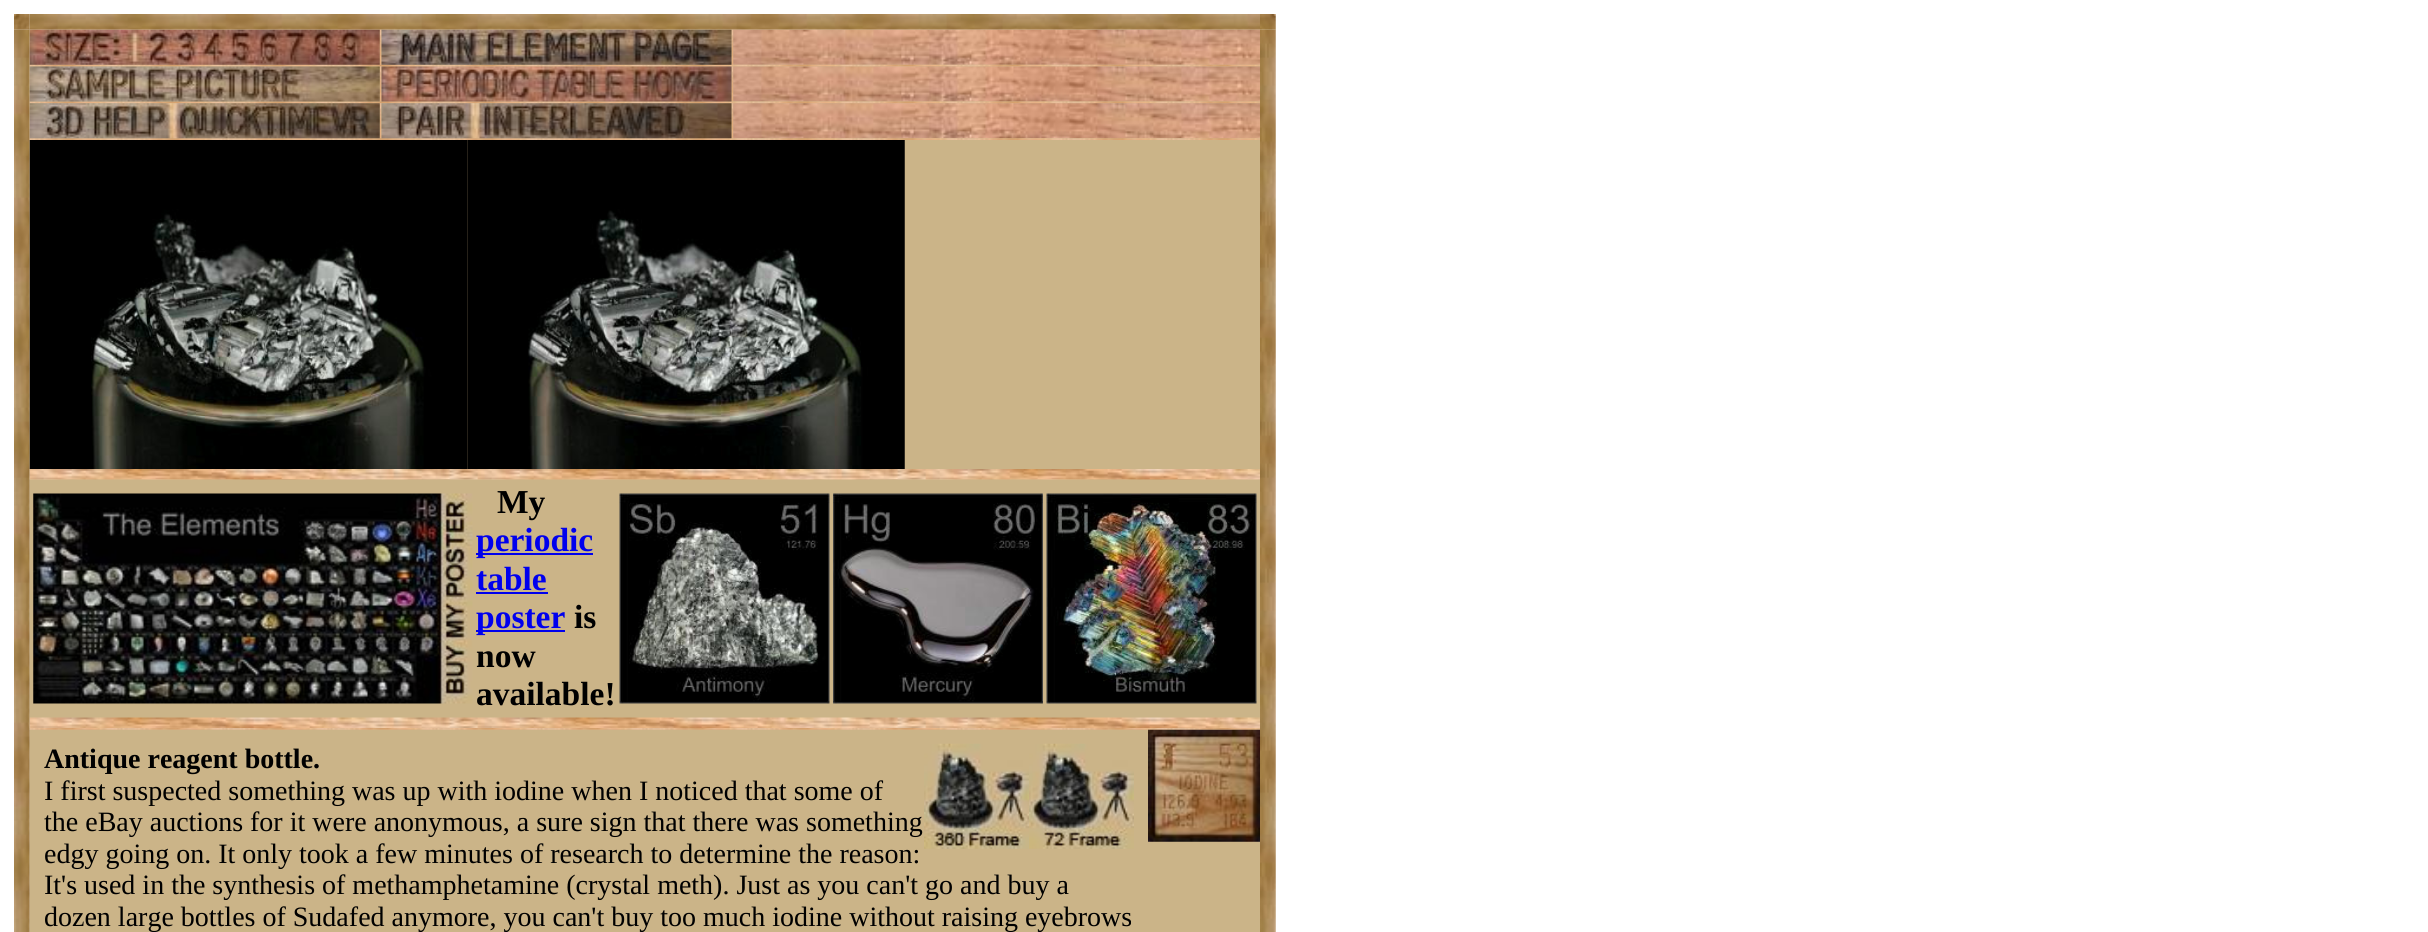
#include <cairo/cairo.h>
#include <math.h>
#include <stddef.h>

typedef struct { double x, y; const char *s; } line_t;
typedef struct { double x, y, w, h; unsigned color; } box_t;
static cairo_t *cr;

static void rgb(unsigned color)
{
	cairo_set_source_rgb(cr, (color >> 16) / 255.0, (color >> 8 & 255) / 255.0, (color & 255) / 255.0);
}

static void image(const char *path, double x, double y, double w, double h)
{
	cairo_surface_t *image = cairo_image_surface_create_from_png(path);
	cairo_save(cr);
	cairo_set_source_surface(cr, image, x, y);
	cairo_rectangle(cr, x, y, w, h);
	cairo_fill(cr);
	cairo_restore(cr);
	cairo_surface_destroy(image);
}

int main(void) {
	cairo_surface_t *surface = cairo_image_surface_create(CAIRO_FORMAT_RGB24, 2428, 932);
	cr = cairo_create(surface);
	cairo_font_options_t *options = cairo_font_options_create();
	cairo_font_options_set_hint_metrics(options, CAIRO_HINT_METRICS_OFF);
	cairo_font_options_set_hint_style(options, CAIRO_HINT_STYLE_NONE);
	cairo_set_font_options(cr, options);
	cairo_set_miter_limit(cr, 4);
	rgb(0xffffff);
	cairo_paint(cr);
	image("img/2.png", 29, 14, 1231, 16);
	image("img/4.png", 14, 29, 16, 903);
	image("img/1.png", 14, 14, 16, 16);
	image("img/35.png", 1260, 29, 16, 903);
	image("img/3.png", 1260, 14, 16, 16);
	rgb(0xcbb488);
	cairo_rectangle(cr, 30, 30, 1230, 902);
	cairo_fill(cr);
	image("img/6.png", 379, 29, 3, 36);
	image("img/8.png", 731, 29, 3, 36);
	image("img/9.png", 733, 29, 527, 36);
	image("img/10.png", 29, 64, 1231, 3);
	image("img/5.png", 29, 29, 351, 36);
	image("img/7.png", 381, 29, 351, 36);
	image("img/12.png", 379, 66, 3, 36);
	image("img/14.png", 731, 66, 3, 36);
	image("img/15.png", 733, 66, 527, 36);
	image("img/16.png", 29, 101, 1231, 3);
	image("img/11.png", 29, 66, 351, 36);
	image("img/13.png", 381, 66, 351, 36);
	image("img/18.png", 379, 103, 3, 36);
	image("img/20.png", 731, 103, 3, 36);
	image("img/21.png", 733, 103, 527, 36);
	image("img/22.png", 29, 138, 1231, 2);
	image("img/17.png", 29, 103, 351, 36);
	image("img/19.png", 381, 103, 351, 36);
	image("img/23.png", 29, 140, 439, 329);
	image("img/24.png", 467, 140, 438, 329);
	image("img/25.png", 29, 469, 1231, 11);
	image("img/26.png", 33, 493, 440, 211);
	{
		static const box_t items[] = {
			{476, 553, 117, 2, 0x0000ee},
			{476, 592, 72, 2, 0x0000ee},
			{476, 630, 89, 2, 0x0000ee},
		};
		for (size_t i = 0; i < sizeof items / sizeof *items; i++) {
			rgb(items[i].color);
			cairo_rectangle(cr, items[i].x, items[i].y, items[i].w, items[i].h);
			cairo_fill(cr);
		}
	}
	image("img/27.png", 619, 493, 211, 211);
	image("img/28.png", 833, 493, 210, 211);
	image("img/29.png", 1046, 493, 211, 211);
	image("img/30.png", 29, 717, 1231, 11);
	image("img/31.png", 29, 728, 1231, 2);
	image("img/32.png", 924, 743, 105, 106);
	image("img/33.png", 1029, 743, 105, 106);
	image("img/34.png", 1148, 729, 112, 113);
	cairo_select_font_face(cr, "Liberation Serif", CAIRO_FONT_SLANT_NORMAL, CAIRO_FONT_WEIGHT_BOLD);
	cairo_set_font_size(cr, 33.5);
	rgb(0x000000);
	cairo_move_to(cr, 497, 513);
	cairo_show_text(cr, "My");
	rgb(0x0000ee);
	{
		static const line_t items[] = {
			{476, 551, "periodic"},
			{476, 590, "table"},
			{476, 628, "poster"},
		};
		for (size_t i = 0; i < sizeof items / sizeof *items; i++) {
			cairo_move_to(cr, items[i].x, items[i].y);
			cairo_show_text(cr, items[i].s);
		}
	}
	rgb(0x000000);
	{
		static const line_t items[] = {
			{574, 628, "is"},
			{476, 667, "now"},
			{476, 705, "available!"},
		};
		for (size_t i = 0; i < sizeof items / sizeof *items; i++) {
			cairo_move_to(cr, items[i].x, items[i].y);
			cairo_show_text(cr, items[i].s);
		}
	}
	cairo_set_font_size(cr, 28);
	cairo_move_to(cr, 44, 768);
	cairo_show_text(cr, "Antique reagent bottle.");
	cairo_select_font_face(cr, "Liberation Serif", CAIRO_FONT_SLANT_NORMAL, CAIRO_FONT_WEIGHT_NORMAL);
	{
		static const line_t items[] = {
			{44, 800, "I first suspected something was up with iodine when I noticed that some of"},
			{44, 831, "the eBay auctions for it were anonymous, a sure sign that there was something"},
			{44, 863, "edgy going on. It only took a few minutes of research to determine the reason:"},
			{44, 894, "It's used in the synthesis of methamphetamine (crystal meth). Just as you can't go and buy a"},
			{44, 926, "dozen large bottles of Sudafed anymore, you can't buy too much iodine without raising eyebrows"},
		};
		for (size_t i = 0; i < sizeof items / sizeof *items; i++) {
			cairo_move_to(cr, items[i].x, items[i].y);
			cairo_show_text(cr, items[i].s);
		}
	}
	cairo_surface_write_to_png(surface, "page.png");
	cairo_font_options_destroy(options);
	cairo_destroy(cr);
	cairo_surface_destroy(surface);
	return 0;
}
